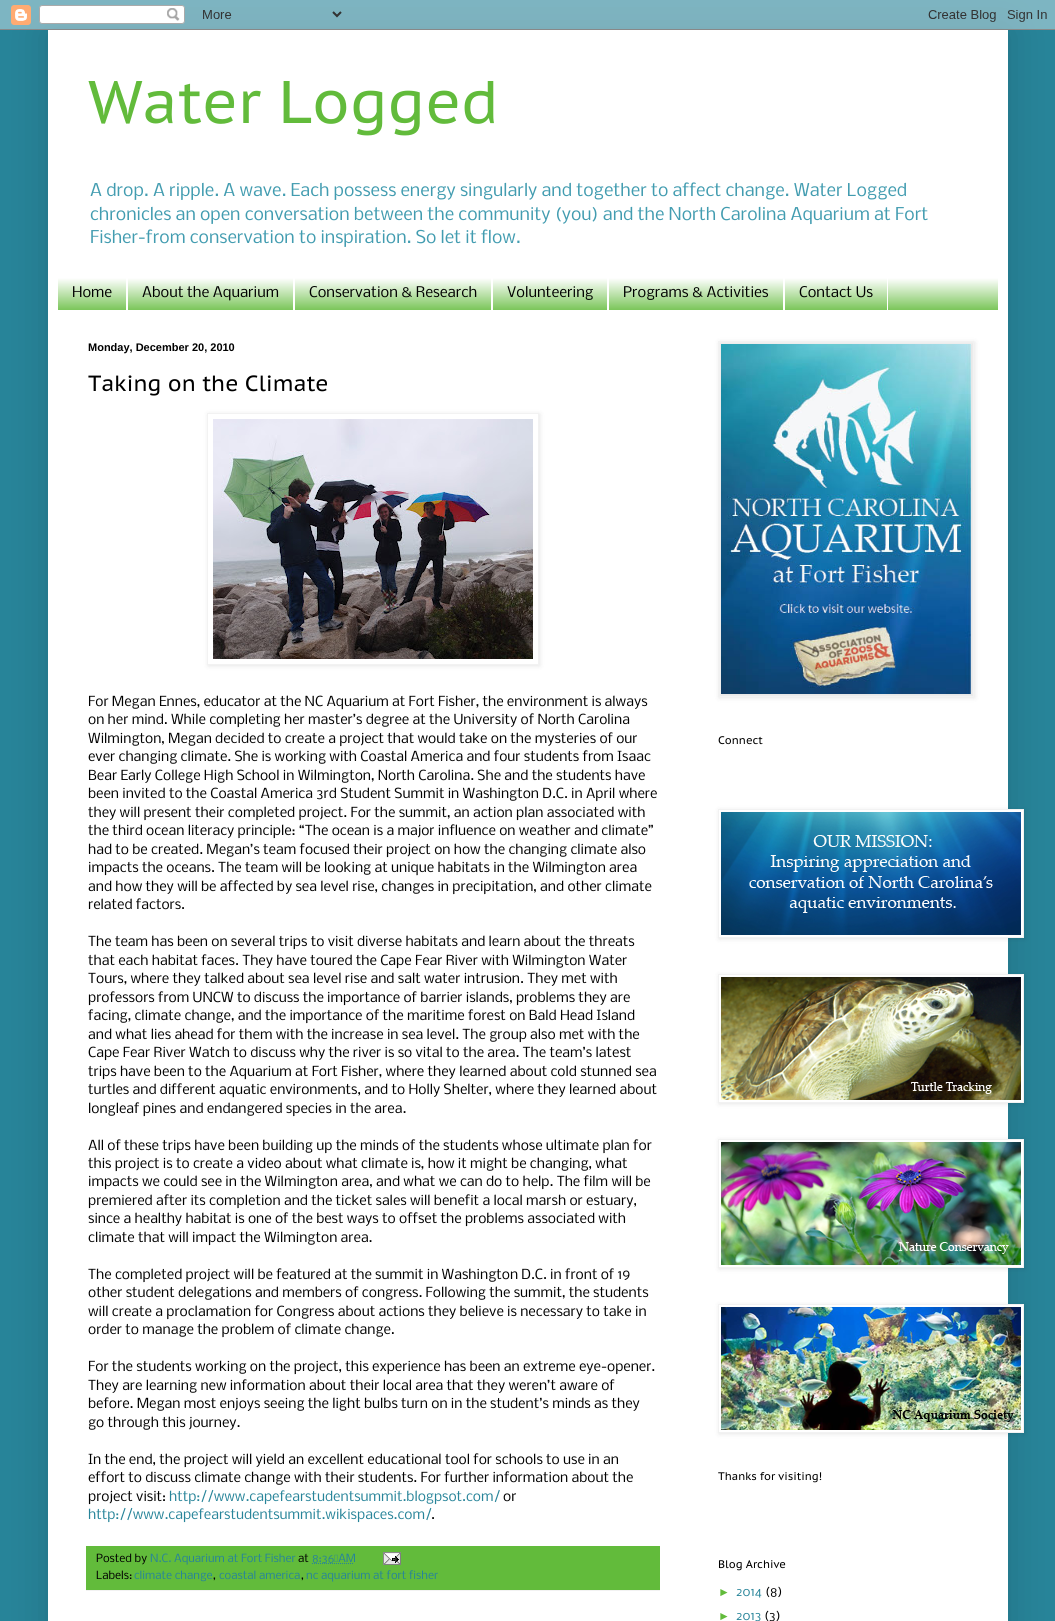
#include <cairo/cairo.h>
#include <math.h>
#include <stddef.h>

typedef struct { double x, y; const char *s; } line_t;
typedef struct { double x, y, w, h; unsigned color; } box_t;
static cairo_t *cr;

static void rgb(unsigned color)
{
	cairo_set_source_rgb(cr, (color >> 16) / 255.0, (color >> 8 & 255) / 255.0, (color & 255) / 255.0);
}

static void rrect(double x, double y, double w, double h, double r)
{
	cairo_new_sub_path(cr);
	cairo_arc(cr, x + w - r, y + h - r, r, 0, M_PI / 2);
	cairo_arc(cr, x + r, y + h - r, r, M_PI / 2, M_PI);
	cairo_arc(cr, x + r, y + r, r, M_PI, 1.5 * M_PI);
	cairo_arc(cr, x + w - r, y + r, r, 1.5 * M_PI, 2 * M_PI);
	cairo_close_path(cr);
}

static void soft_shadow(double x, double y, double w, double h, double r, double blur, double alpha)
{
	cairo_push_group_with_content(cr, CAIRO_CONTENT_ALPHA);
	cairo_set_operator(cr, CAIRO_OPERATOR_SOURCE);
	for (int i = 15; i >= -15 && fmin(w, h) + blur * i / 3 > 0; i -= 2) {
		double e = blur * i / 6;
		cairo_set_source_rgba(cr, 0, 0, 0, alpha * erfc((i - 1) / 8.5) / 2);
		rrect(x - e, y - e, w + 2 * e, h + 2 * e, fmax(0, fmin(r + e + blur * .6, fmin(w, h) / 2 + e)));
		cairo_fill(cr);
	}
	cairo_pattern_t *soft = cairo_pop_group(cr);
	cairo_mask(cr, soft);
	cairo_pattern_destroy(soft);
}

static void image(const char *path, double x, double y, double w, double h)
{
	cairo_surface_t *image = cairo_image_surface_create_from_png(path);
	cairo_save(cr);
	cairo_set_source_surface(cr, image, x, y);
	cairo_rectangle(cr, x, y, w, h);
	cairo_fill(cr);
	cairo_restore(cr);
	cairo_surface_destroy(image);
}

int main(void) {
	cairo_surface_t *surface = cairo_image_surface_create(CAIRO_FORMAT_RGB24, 1055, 1621);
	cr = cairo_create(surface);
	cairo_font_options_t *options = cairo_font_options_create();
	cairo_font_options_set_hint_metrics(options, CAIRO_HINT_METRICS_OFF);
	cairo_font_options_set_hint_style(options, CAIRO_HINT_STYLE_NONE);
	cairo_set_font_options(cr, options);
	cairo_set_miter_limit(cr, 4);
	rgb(0x278499);
	cairo_paint(cr);
	rgb(0x000000);
	soft_shadow(48, 30, 960, 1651, 0, 20, 0.15);
	image("img/1.png", 0, 0, 1055, 30);
	rgb(0xffffff);
	cairo_rectangle(cr, 48, 30, 960, 1591);
	cairo_fill(cr);
	rgb(0x62bb3b);
	cairo_rectangle(cr, 58, 278, 940, 32);
	cairo_fill(cr);
	image("img/2.png", 58, 277, 940, 33);
	{
		static const box_t items[] = {
			{126, 277, 2, 33, 0xffffff},
			{293, 277, 2, 33, 0xffffff},
			{491, 277, 2, 33, 0xffffff},
			{607, 277, 2, 33, 0xffffff},
			{783, 277, 2, 33, 0xffffff},
			{887, 277, 1, 33, 0xffffff},
		};
		for (size_t i = 0; i < sizeof items / sizeof *items; i++) {
			rgb(items[i].color);
			cairo_rectangle(cr, items[i].x, items[i].y, items[i].w, items[i].h);
			cairo_fill(cr);
		}
	}
	cairo_save(cr);
	cairo_set_fill_rule(cr, CAIRO_FILL_RULE_EVEN_ODD);
	cairo_new_path(cr);
	cairo_move_to(cr, 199, 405);
	cairo_line_to(cr, 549, 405);
	cairo_line_to(cr, 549, 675);
	cairo_line_to(cr, 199, 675);
	cairo_close_path(cr);
	cairo_move_to(cr, 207, 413);
	cairo_line_to(cr, 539, 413);
	cairo_line_to(cr, 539, 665);
	cairo_line_to(cr, 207, 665);
	cairo_close_path(cr);
	cairo_clip(cr);
	rgb(0x000000);
	soft_shadow(208, 414, 332, 252, 0, 2.5, 0.1);
	cairo_restore(cr);
	cairo_rectangle(cr, 207.5, 413.5, 331, 251);
	rgb(0xf2f2f2);
	cairo_set_line_width(cr, 1);
	cairo_stroke(cr);
	image("img/3.png", 213, 419, 320, 240);
	rgb(0x62bb3b);
	cairo_rectangle(cr, 86, 1546, 574, 44);
	cairo_fill(cr);
	rgb(0xf2f2f2);
	cairo_rectangle(cr, 86, 1590, 574, 1);
	cairo_fill(cr);
	cairo_new_path(cr);
	cairo_move_to(cr, 312, 1563.5);
	cairo_line_to(cr, 353.5, 1563.5);
	rgb(0x278499);
	cairo_set_dash(cr, (double[]){1, 1}, 2, 0);
	cairo_stroke(cr);
	image("img/4.png", 383, 1552, 18, 13);
	rgb(0x000000);
	soft_shadow(719, 342, 256, 356, 0, 2.5, 0.1);
	cairo_rectangle(cr, 718.5, 341.5, 255, 355);
	rgb(0xf2f2f2);
	cairo_set_dash(cr, NULL, 0, 0);
	cairo_stroke(cr);
	image("img/5.png", 721, 344, 250, 350);
	rgb(0x000000);
	soft_shadow(719, 810, 306, 129, 0, 2.5, 0.1);
	rgb(0xffffff);
	cairo_rectangle(cr, 718.5, 809.5, 305, 128);
	cairo_fill_preserve(cr);
	rgb(0xf2f2f2);
	cairo_stroke(cr);
	image("img/6.png", 721, 812, 300, 123);
	rgb(0x000000);
	soft_shadow(719, 975, 306, 129, 0, 2.5, 0.1);
	rgb(0xffffff);
	cairo_rectangle(cr, 718.5, 974.5, 305, 128);
	cairo_fill_preserve(cr);
	rgb(0xf2f2f2);
	cairo_stroke(cr);
	image("img/7.png", 721, 977, 300, 123);
	rgb(0x000000);
	soft_shadow(719, 1140, 306, 129, 0, 2.5, 0.1);
	rgb(0xffffff);
	cairo_rectangle(cr, 718.5, 1139.5, 305, 128);
	cairo_fill_preserve(cr);
	rgb(0xf2f2f2);
	cairo_stroke(cr);
	image("img/8.png", 721, 1142, 300, 123);
	rgb(0x000000);
	soft_shadow(719, 1305, 306, 129, 0, 2.5, 0.1);
	rgb(0xffffff);
	cairo_rectangle(cr, 718.5, 1304.5, 305, 128);
	cairo_fill_preserve(cr);
	rgb(0xf2f2f2);
	cairo_stroke(cr);
	image("img/9.png", 721, 1307, 300, 123);
	cairo_select_font_face(cr, "PT Sans Caption", CAIRO_FONT_SLANT_NORMAL, CAIRO_FONT_WEIGHT_NORMAL);
	cairo_set_font_size(cr, 60);
	rgb(0x62bb3b);
	cairo_move_to(cr, 88, 123);
	cairo_show_text(cr, "Water Logged");
	cairo_select_font_face(cr, "Nobile", CAIRO_FONT_SLANT_NORMAL, CAIRO_FONT_WEIGHT_NORMAL);
	cairo_set_font_size(cr, 16.8);
	rgb(0x429cb0);
	{
		static const line_t items[] = {
			{90, 196, "A drop. A ripple. A wave. Each possess energy singularly and together to affect change. Water Logged"},
			{90, 220, "chronicles an open conversation between the community (you) and the North Carolina Aquarium at Fort"},
			{90, 243, "Fisher-from conservation to inspiration. So let it flow."},
		};
		for (size_t i = 0; i < sizeof items / sizeof *items; i++) {
			cairo_move_to(cr, items[i].x, items[i].y);
			cairo_show_text(cr, items[i].s);
		}
	}
	cairo_set_font_size(cr, 14);
	rgb(0x000000);
	{
		static const line_t items[] = {
			{72, 297, "Home"},
			{142, 297, "About the Aquarium"},
			{309, 297, "Conservation & Research"},
			{507, 297, "Volunteering"},
			{623, 297, "Programs & Activities"},
			{799, 297, "Contact Us"},
		};
		for (size_t i = 0; i < sizeof items / sizeof *items; i++) {
			cairo_move_to(cr, items[i].x, items[i].y);
			cairo_show_text(cr, items[i].s);
		}
	}
	cairo_select_font_face(cr, "Liberation Sans", CAIRO_FONT_SLANT_NORMAL, CAIRO_FONT_WEIGHT_BOLD);
	cairo_set_font_size(cr, 11);
	cairo_move_to(cr, 88, 351);
	cairo_show_text(cr, "Monday, December 20, 2010");
	cairo_select_font_face(cr, "PT Sans Caption", CAIRO_FONT_SLANT_NORMAL, CAIRO_FONT_WEIGHT_NORMAL);
	cairo_set_font_size(cr, 22);
	cairo_move_to(cr, 88, 391);
	cairo_show_text(cr, "Taking on the Climate");
	cairo_select_font_face(cr, "Nobile", CAIRO_FONT_SLANT_NORMAL, CAIRO_FONT_WEIGHT_NORMAL);
	cairo_set_font_size(cr, 13.2);
	{
		static const line_t items[] = {
			{88, 706, "For Megan Ennes, educator at the NC Aquarium at Fort Fisher, the environment is always"},
			{88, 724, "on her mind. While completing her master’s degree at the University of North Carolina"},
			{88, 743, "Wilmington, Megan decided to create a project that would take on the mysteries of our"},
			{88, 761, "ever changing climate. She is working with Coastal America and four students from Isaac"},
			{88, 780, "Bear Early College High School in Wilmington, North Carolina. She and the students have"},
			{88, 798, "been invited to the Coastal America 3rd Student Summit in Washington D.C. in April where"},
			{88, 817, "they will present their completed project. For the summit, an action plan associated with"},
			{88, 835, "the third ocean literacy principle: “The ocean is a major influence on weather and climate”"},
			{88, 854, "had to be created. Megan’s team focused their project on how the changing climate also"},
			{88, 872, "impacts the oceans. The team will be looking at unique habitats in the Wilmington area"},
			{88, 891, "and how they will be affected by sea level rise, changes in precipitation, and other climate"},
			{88, 909, "related factors."},
			{88, 946, "The team has been on several trips to visit diverse habitats and learn about the threats"},
			{88, 965, "that each habitat faces. They have toured the Cape Fear River with Wilmington Water"},
			{88, 983, "Tours, where they talked about sea level rise and salt water intrusion. They met with"},
			{88, 1002, "professors from UNCW to discuss the importance of barrier islands, problems they are"},
			{88, 1020, "facing, climate change, and the importance of the maritime forest on Bald Head Island"},
			{88, 1039, "and what lies ahead for them with the increase in sea level. The group also met with the"},
			{88, 1057, "Cape Fear River Watch to discuss why the river is so vital to the area. The team’s latest"},
			{88, 1076, "trips have been to the Aquarium at Fort Fisher, where they learned about cold stunned sea"},
			{88, 1094, "turtles and different aquatic environments, and to Holly Shelter, where they learned about"},
			{88, 1113, "longleaf pines and endangered species in the area."},
			{88, 1150, "All of these trips have been building up the minds of the students whose ultimate plan for"},
			{88, 1168, "this project is to create a video about what climate is, how it might be changing, what"},
			{88, 1186, "impacts we could see in the Wilmington area, and what we can do to help. The film will be"},
			{88, 1205, "premiered after its completion and the ticket sales will benefit a local marsh or estuary,"},
			{88, 1223, "since a healthy habitat is one of the best ways to offset the problems associated with"},
			{88, 1242, "climate that will impact the Wilmington area."},
			{88, 1279, "The completed project will be featured at the summit in Washington D.C. in front of 19"},
			{88, 1297, "other student delegations and members of congress. Following the summit, the students"},
			{88, 1316, "will create a proclamation for Congress about actions they believe is necessary to take in"},
			{88, 1334, "order to manage the problem of climate change."},
			{88, 1371, "For the students working on the project, this experience has been an extreme eye-opener."},
			{88, 1390, "They are learning new information about their local area that they weren’t aware of"},
			{88, 1408, "before. Megan most enjoys seeing the light bulbs turn on in the student’s minds as they"},
			{88, 1427, "go through this journey."},
			{88, 1464, "In the end, the project will yield an excellent educational tool for schools to use in an"},
			{88, 1482, "effort to discuss climate change with their students. For further information about the"},
			{88, 1501, "project visit:"},
		};
		for (size_t i = 0; i < sizeof items / sizeof *items; i++) {
			cairo_move_to(cr, items[i].x, items[i].y);
			cairo_show_text(cr, items[i].s);
		}
	}
	rgb(0x278499);
	cairo_move_to(cr, 169, 1501);
	cairo_show_text(cr, "http://www.capefearstudentsummit.blogpsot.com/");
	rgb(0x000000);
	cairo_move_to(cr, 503, 1501);
	cairo_show_text(cr, "or");
	rgb(0x278499);
	cairo_move_to(cr, 88, 1519);
	cairo_show_text(cr, "http://www.capefearstudentsummit.wikispaces.com/");
	rgb(0x000000);
	cairo_move_to(cr, 431, 1519);
	cairo_show_text(cr, ".");
	cairo_set_font_size(cr, 10.75);
	cairo_move_to(cr, 96, 1562);
	cairo_show_text(cr, "Posted by");
	rgb(0x278499);
	cairo_move_to(cr, 150, 1562);
	cairo_show_text(cr, "N.C. Aquarium at Fort Fisher");
	rgb(0x000000);
	cairo_move_to(cr, 298, 1562);
	cairo_show_text(cr, "at");
	rgb(0x278499);
	cairo_move_to(cr, 312, 1562);
	cairo_show_text(cr, "8:36 AM");
	rgb(0x000000);
	cairo_move_to(cr, 96, 1579);
	cairo_show_text(cr, "Labels:");
	rgb(0x278499);
	cairo_move_to(cr, 134, 1579);
	cairo_show_text(cr, "climate change");
	rgb(0x000000);
	cairo_move_to(cr, 213, 1579);
	cairo_show_text(cr, ",");
	rgb(0x278499);
	cairo_move_to(cr, 219, 1579);
	cairo_show_text(cr, "coastal america");
	rgb(0x000000);
	cairo_move_to(cr, 301, 1579);
	cairo_show_text(cr, ",");
	rgb(0x278499);
	cairo_move_to(cr, 306, 1579);
	cairo_show_text(cr, "nc aquarium at fort fisher");
	cairo_select_font_face(cr, "PT Sans Caption", CAIRO_FONT_SLANT_NORMAL, CAIRO_FONT_WEIGHT_NORMAL);
	cairo_set_font_size(cr, 11);
	rgb(0x000000);
	{
		static const line_t items[] = {
			{718, 744, "Connect"},
			{718, 1480, "Thanks for visiting!"},
			{718, 1568, "Blog Archive"},
		};
		for (size_t i = 0; i < sizeof items / sizeof *items; i++) {
			cairo_move_to(cr, items[i].x, items[i].y);
			cairo_show_text(cr, items[i].s);
		}
	}
	cairo_select_font_face(cr, "Liberation Sans", CAIRO_FONT_SLANT_NORMAL, CAIRO_FONT_WEIGHT_NORMAL);
	cairo_set_font_size(cr, 12);
	rgb(0x62bb3b);
	cairo_move_to(cr, 718, 1596);
	cairo_show_text(cr, "►");
	cairo_select_font_face(cr, "Nobile", CAIRO_FONT_SLANT_NORMAL, CAIRO_FONT_WEIGHT_NORMAL);
	rgb(0x278499);
	cairo_move_to(cr, 736, 1596);
	cairo_show_text(cr, "2014");
	rgb(0x000000);
	cairo_move_to(cr, 765, 1596);
	cairo_show_text(cr, "(8)");
	cairo_select_font_face(cr, "Liberation Sans", CAIRO_FONT_SLANT_NORMAL, CAIRO_FONT_WEIGHT_NORMAL);
	rgb(0x62bb3b);
	cairo_move_to(cr, 718, 1620);
	cairo_show_text(cr, "►");
	cairo_select_font_face(cr, "Nobile", CAIRO_FONT_SLANT_NORMAL, CAIRO_FONT_WEIGHT_NORMAL);
	rgb(0x278499);
	cairo_move_to(cr, 736, 1620);
	cairo_show_text(cr, "2013");
	rgb(0x000000);
	cairo_move_to(cr, 764, 1620);
	cairo_show_text(cr, "(3)");
	cairo_surface_write_to_png(surface, "page.png");
	cairo_font_options_destroy(options);
	cairo_destroy(cr);
	cairo_surface_destroy(surface);
	return 0;
}
